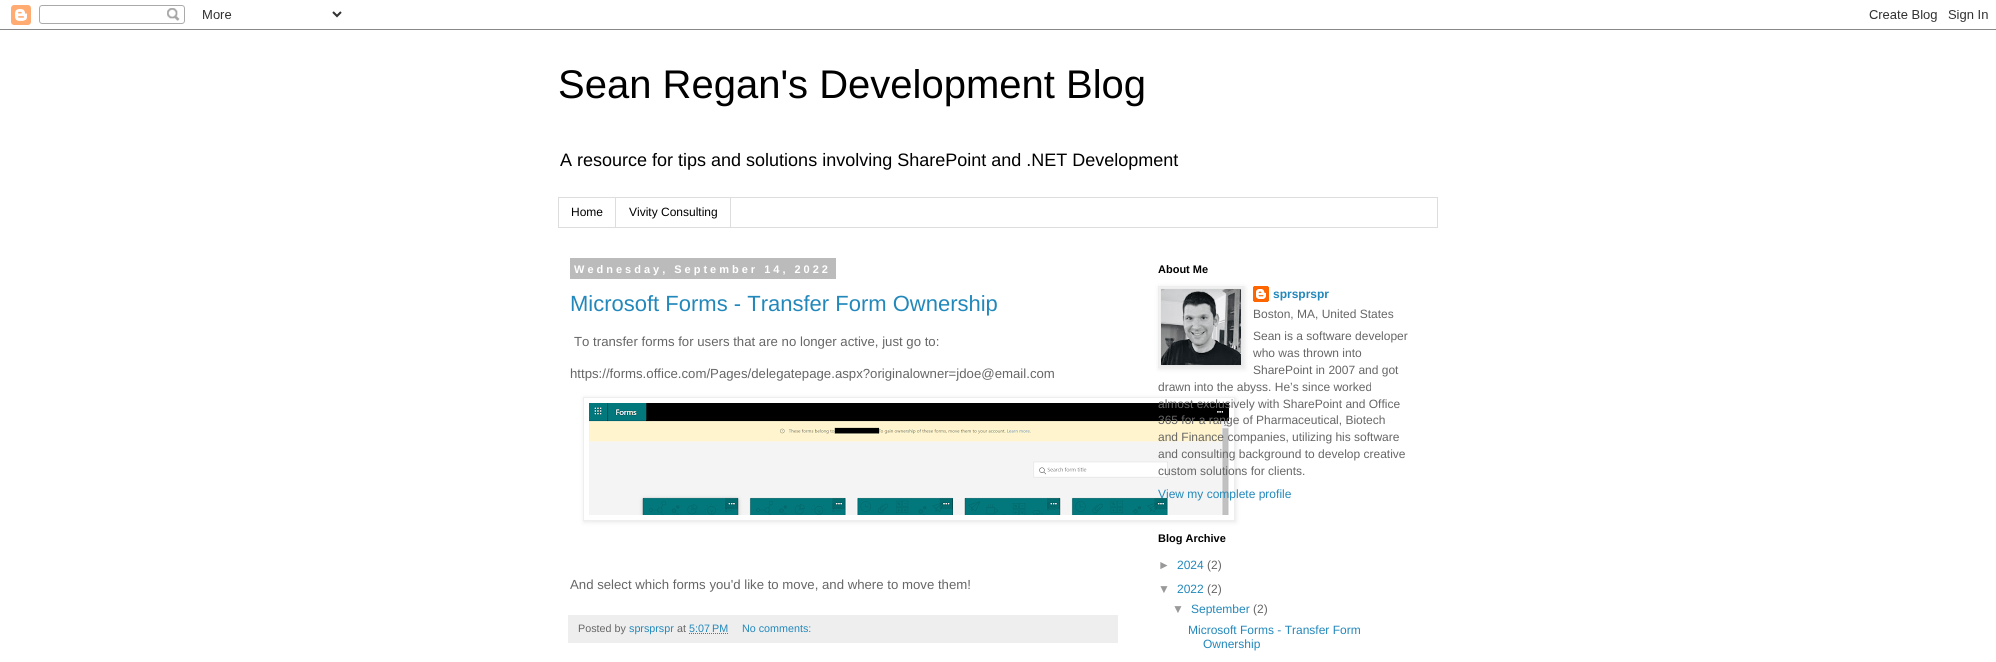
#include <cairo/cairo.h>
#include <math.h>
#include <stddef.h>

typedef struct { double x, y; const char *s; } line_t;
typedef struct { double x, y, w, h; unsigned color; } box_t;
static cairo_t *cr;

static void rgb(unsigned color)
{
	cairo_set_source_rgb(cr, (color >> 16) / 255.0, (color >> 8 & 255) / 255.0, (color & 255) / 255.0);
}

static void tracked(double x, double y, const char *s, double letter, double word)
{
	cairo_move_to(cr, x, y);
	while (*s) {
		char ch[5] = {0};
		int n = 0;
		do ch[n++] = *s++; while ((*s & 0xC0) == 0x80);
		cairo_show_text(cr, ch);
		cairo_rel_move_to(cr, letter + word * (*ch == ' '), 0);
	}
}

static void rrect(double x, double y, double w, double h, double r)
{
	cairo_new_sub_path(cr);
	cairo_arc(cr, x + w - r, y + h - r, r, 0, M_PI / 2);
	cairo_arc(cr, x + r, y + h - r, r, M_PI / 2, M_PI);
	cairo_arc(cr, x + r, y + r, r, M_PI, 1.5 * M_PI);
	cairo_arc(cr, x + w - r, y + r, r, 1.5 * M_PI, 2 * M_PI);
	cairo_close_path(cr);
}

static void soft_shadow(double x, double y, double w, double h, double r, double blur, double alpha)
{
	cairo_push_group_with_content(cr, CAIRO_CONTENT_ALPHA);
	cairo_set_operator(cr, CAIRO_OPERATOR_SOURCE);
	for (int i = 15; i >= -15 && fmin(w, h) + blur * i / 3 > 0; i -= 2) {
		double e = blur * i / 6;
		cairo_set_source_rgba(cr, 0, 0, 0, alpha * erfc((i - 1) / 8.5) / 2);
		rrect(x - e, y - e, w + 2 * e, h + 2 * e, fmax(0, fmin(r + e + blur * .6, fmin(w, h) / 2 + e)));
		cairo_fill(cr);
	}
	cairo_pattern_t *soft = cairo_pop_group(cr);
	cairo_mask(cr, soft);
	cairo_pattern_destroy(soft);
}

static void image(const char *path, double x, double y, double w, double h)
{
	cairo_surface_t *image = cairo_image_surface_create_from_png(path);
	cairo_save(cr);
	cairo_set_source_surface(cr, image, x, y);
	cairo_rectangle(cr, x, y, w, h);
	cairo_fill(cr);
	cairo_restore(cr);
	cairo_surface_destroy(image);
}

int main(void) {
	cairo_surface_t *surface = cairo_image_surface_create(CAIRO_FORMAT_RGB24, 1996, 662);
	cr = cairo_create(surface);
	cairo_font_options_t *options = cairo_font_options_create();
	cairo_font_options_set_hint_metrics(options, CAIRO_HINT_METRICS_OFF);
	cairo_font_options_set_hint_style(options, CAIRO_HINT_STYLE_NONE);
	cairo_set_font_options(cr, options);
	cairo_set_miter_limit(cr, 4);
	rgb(0xffffff);
	cairo_paint(cr);
	image("img/1.png", 0, 5, 1996, 25);
	cairo_rectangle(cr, 558.5, 197.5, 879, 30);
	rgb(0xdddddd);
	cairo_set_line_width(cr, 1);
	cairo_stroke(cr);
	{
		static const box_t items[] = {
			{615, 198, 1, 29, 0xdddddd},
			{730, 198, 1, 29, 0xdddddd},
			{570, 258, 266, 21, 0xbbbbbb},
		};
		for (size_t i = 0; i < sizeof items / sizeof *items; i++) {
			rgb(items[i].color);
			cairo_rectangle(cr, items[i].x, items[i].y, items[i].w, items[i].h);
			cairo_fill(cr);
		}
	}
	cairo_save(cr);
	cairo_set_fill_rule(cr, CAIRO_FILL_RULE_EVEN_ODD);
	cairo_new_path(cr);
	cairo_move_to(cr, 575, 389);
	cairo_line_to(cr, 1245, 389);
	cairo_line_to(cr, 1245, 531);
	cairo_line_to(cr, 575, 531);
	cairo_close_path(cr);
	cairo_move_to(cr, 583, 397);
	cairo_line_to(cr, 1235, 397);
	cairo_line_to(cr, 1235, 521);
	cairo_line_to(cr, 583, 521);
	cairo_close_path(cr);
	cairo_clip(cr);
	rgb(0x000000);
	soft_shadow(584, 398, 652, 124, 0, 2.5, 0.1);
	cairo_restore(cr);
	cairo_rectangle(cr, 583.5, 397.5, 651, 123);
	rgb(0xeeeeee);
	cairo_stroke(cr);
	image("img/2.png", 589, 403, 640, 112);
	cairo_rectangle(cr, 568, 615, 550, 28);
	cairo_fill(cr);
	cairo_new_path(cr);
	cairo_move_to(cr, 689, 633.5);
	cairo_line_to(cr, 728.5, 633.5);
	rgb(0x2288bb);
	cairo_set_dash(cr, (double[]){1, 1}, 2, 0);
	cairo_stroke(cr);
	image("img/4.png", 1253, 286, 16, 16);
	rgb(0x000000);
	soft_shadow(1159, 287, 86, 82, 0, 2.5, 0.1);
	cairo_rectangle(cr, 1158.5, 286.5, 85, 81);
	rgb(0xeeeeee);
	cairo_set_dash(cr, NULL, 0, 0);
	cairo_stroke(cr);
	image("img/3.png", 1161, 289, 80, 76);
	cairo_select_font_face(cr, "Liberation Sans", CAIRO_FONT_SLANT_NORMAL, CAIRO_FONT_WEIGHT_NORMAL);
	cairo_set_font_size(cr, 40);
	rgb(0x000000);
	cairo_move_to(cr, 558, 98);
	cairo_show_text(cr, "Sean Regan's Development Blog");
	cairo_set_font_size(cr, 18);
	cairo_move_to(cr, 560, 166);
	cairo_show_text(cr, "A resource for tips and solutions involving SharePoint and .NET Development");
	cairo_set_font_size(cr, 12);
	cairo_move_to(cr, 571, 216);
	cairo_show_text(cr, "Home");
	cairo_move_to(cr, 629, 216);
	cairo_show_text(cr, "Vivity Consulting");
	cairo_select_font_face(cr, "Liberation Sans", CAIRO_FONT_SLANT_NORMAL, CAIRO_FONT_WEIGHT_BOLD);
	cairo_set_font_size(cr, 11);
	rgb(0xffffff);
	tracked(574, 273, "Wednesday, September 14, 2022", 3, 0);
	cairo_select_font_face(cr, "Liberation Sans", CAIRO_FONT_SLANT_NORMAL, CAIRO_FONT_WEIGHT_NORMAL);
	cairo_set_font_size(cr, 22);
	rgb(0x2288bb);
	cairo_move_to(cr, 570, 311);
	cairo_show_text(cr, "Microsoft Forms - Transfer Form Ownership");
	cairo_set_font_size(cr, 13.2);
	rgb(0x666666);
	{
		static const line_t items[] = {
			{574, 346, "To transfer forms for users that are no longer active, just go to:"},
			{570, 378, "https://forms.office.com/Pages/delegatepage.aspx?originalowner=jdoe@email.com"},
			{570, 589, "And select which forms you'd like to move, and where to move them!"},
		};
		for (size_t i = 0; i < sizeof items / sizeof *items; i++) {
			cairo_move_to(cr, items[i].x, items[i].y);
			cairo_show_text(cr, items[i].s);
		}
	}
	cairo_set_font_size(cr, 10.75);
	cairo_move_to(cr, 578, 632);
	cairo_show_text(cr, "Posted by");
	rgb(0x2288bb);
	cairo_move_to(cr, 629, 632);
	cairo_show_text(cr, "sprsprspr");
	rgb(0x666666);
	cairo_move_to(cr, 677, 632);
	cairo_show_text(cr, "at");
	rgb(0x2288bb);
	cairo_move_to(cr, 689, 632);
	cairo_show_text(cr, "5:07 PM");
	cairo_move_to(cr, 742, 632);
	cairo_show_text(cr, "No comments:");
	cairo_select_font_face(cr, "Liberation Sans", CAIRO_FONT_SLANT_NORMAL, CAIRO_FONT_WEIGHT_BOLD);
	cairo_set_font_size(cr, 11);
	rgb(0x000000);
	cairo_move_to(cr, 1158, 273);
	cairo_show_text(cr, "About Me");
	cairo_set_font_size(cr, 12);
	rgb(0x2288bb);
	cairo_move_to(cr, 1273, 298);
	cairo_show_text(cr, "sprsprspr");
	cairo_select_font_face(cr, "Liberation Sans", CAIRO_FONT_SLANT_NORMAL, CAIRO_FONT_WEIGHT_NORMAL);
	rgb(0x666666);
	{
		static const line_t items[] = {
			{1253, 318, "Boston, MA, United States"},
			{1253, 340, "Sean is a software developer"},
			{1253, 357, "who was thrown into"},
			{1253, 374, "SharePoint in 2007 and got"},
			{1158, 391, "drawn into the abyss. He’s since worked"},
			{1158, 408, "almost exclusively with SharePoint and Office"},
			{1158, 424, "365 for a range of Pharmaceutical, Biotech"},
			{1158, 441, "and Finance companies, utilizing his software"},
			{1158, 458, "and consulting background to develop creative"},
			{1158, 475, "custom solutions for clients."},
		};
		for (size_t i = 0; i < sizeof items / sizeof *items; i++) {
			cairo_move_to(cr, items[i].x, items[i].y);
			cairo_show_text(cr, items[i].s);
		}
	}
	rgb(0x2288bb);
	cairo_move_to(cr, 1158, 498);
	cairo_show_text(cr, "View my complete profile");
	cairo_select_font_face(cr, "Liberation Sans", CAIRO_FONT_SLANT_NORMAL, CAIRO_FONT_WEIGHT_BOLD);
	cairo_set_font_size(cr, 11);
	rgb(0x000000);
	cairo_move_to(cr, 1158, 542);
	cairo_show_text(cr, "Blog Archive");
	cairo_select_font_face(cr, "Liberation Sans", CAIRO_FONT_SLANT_NORMAL, CAIRO_FONT_WEIGHT_NORMAL);
	cairo_set_font_size(cr, 12);
	rgb(0x999999);
	cairo_move_to(cr, 1158, 569);
	cairo_show_text(cr, "►");
	rgb(0x2288bb);
	cairo_move_to(cr, 1177, 569);
	cairo_show_text(cr, "2024");
	rgb(0x666666);
	cairo_move_to(cr, 1207, 569);
	cairo_show_text(cr, "(2)");
	rgb(0x999999);
	cairo_move_to(cr, 1158, 593);
	cairo_show_text(cr, "▼");
	rgb(0x2288bb);
	cairo_move_to(cr, 1177, 593);
	cairo_show_text(cr, "2022");
	rgb(0x666666);
	cairo_move_to(cr, 1207, 593);
	cairo_show_text(cr, "(2)");
	rgb(0x999999);
	cairo_move_to(cr, 1172, 613);
	cairo_show_text(cr, "▼");
	rgb(0x2288bb);
	cairo_move_to(cr, 1191, 613);
	cairo_show_text(cr, "September");
	rgb(0x666666);
	cairo_move_to(cr, 1253, 613);
	cairo_show_text(cr, "(2)");
	rgb(0x2288bb);
	cairo_move_to(cr, 1188, 634);
	cairo_show_text(cr, "Microsoft Forms - Transfer Form");
	cairo_move_to(cr, 1203, 648);
	cairo_show_text(cr, "Ownership");
	cairo_surface_write_to_png(surface, "page.png");
	cairo_font_options_destroy(options);
	cairo_destroy(cr);
	cairo_surface_destroy(surface);
	return 0;
}
